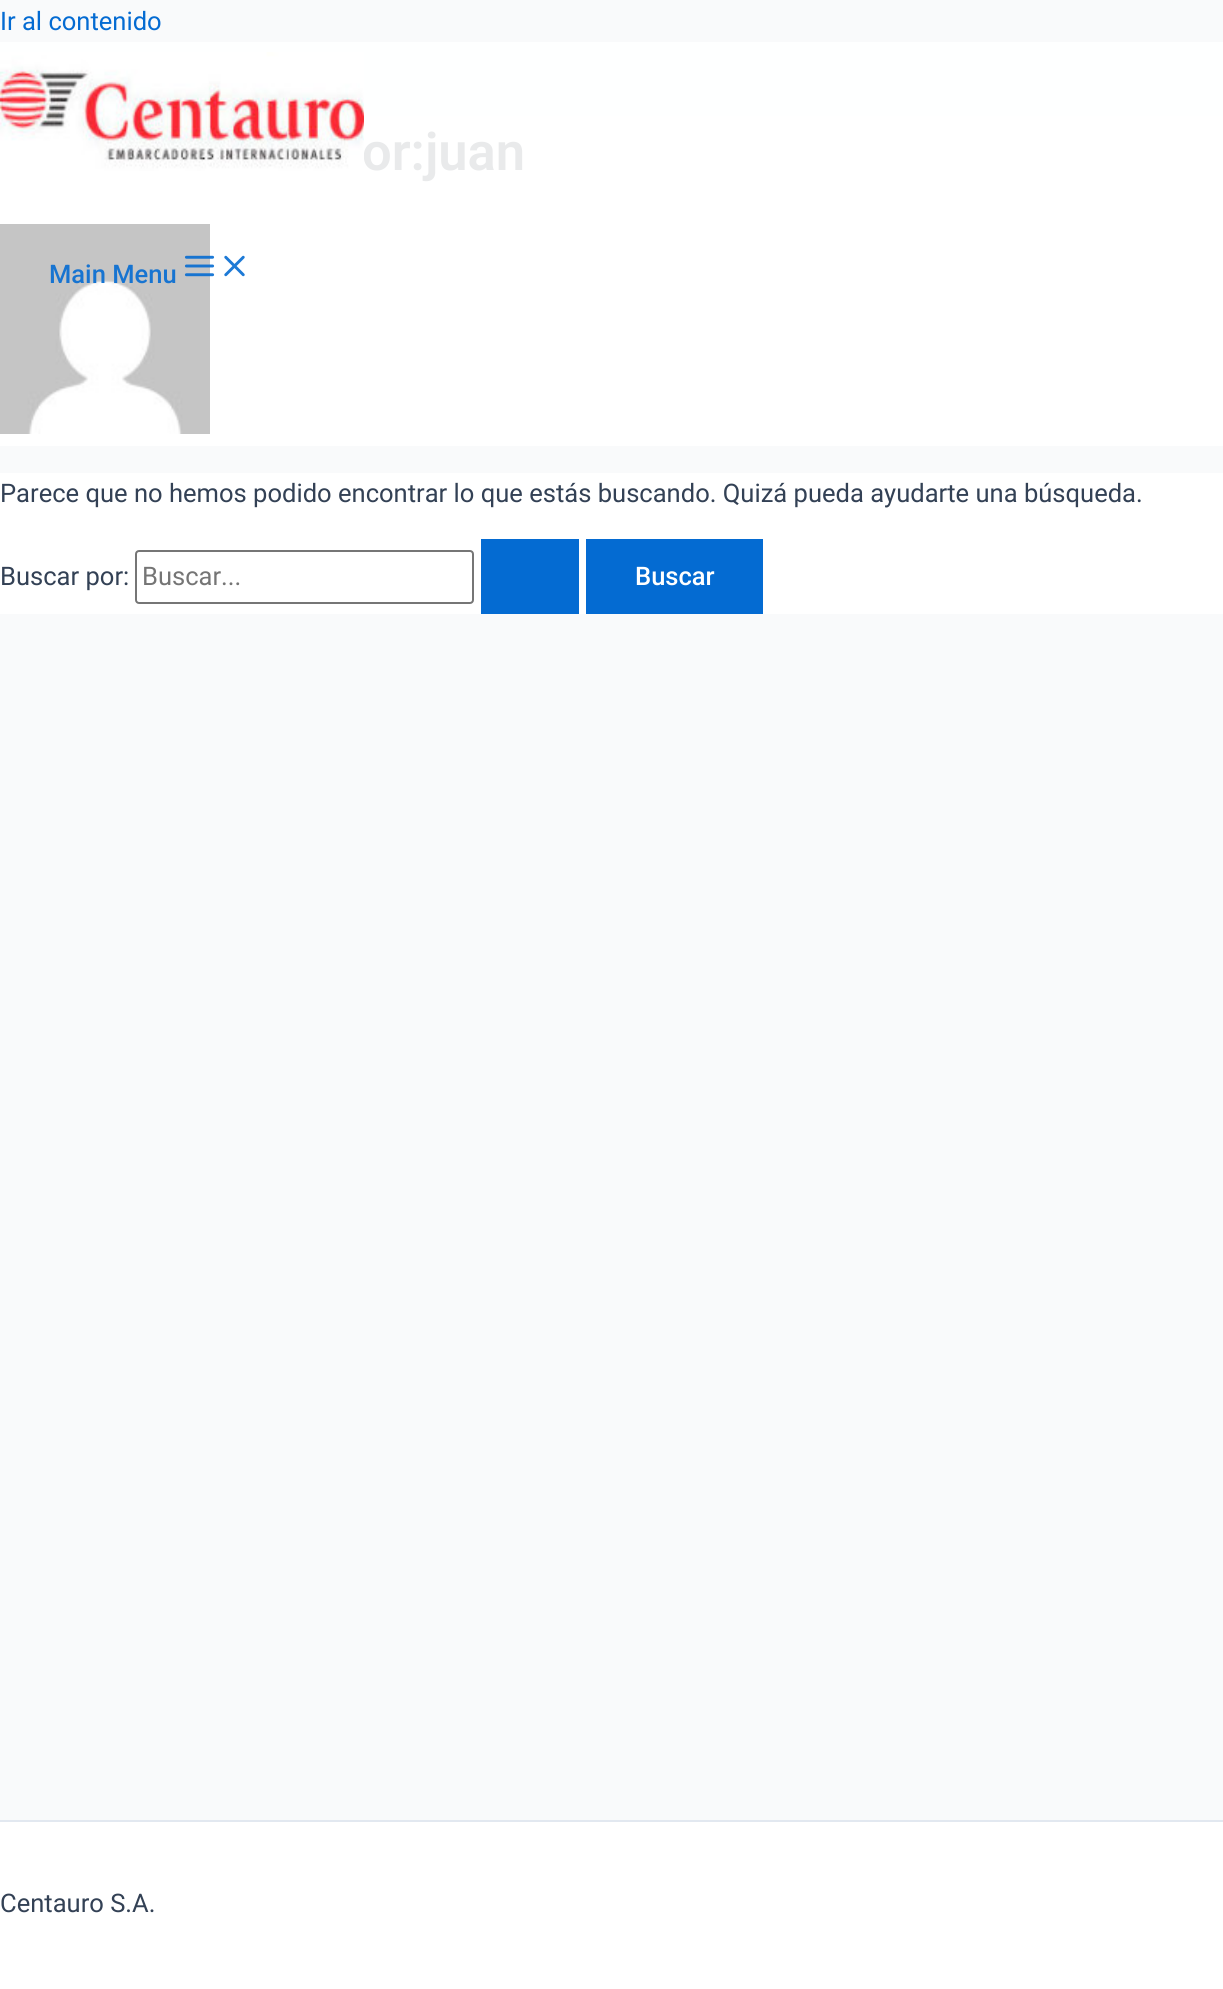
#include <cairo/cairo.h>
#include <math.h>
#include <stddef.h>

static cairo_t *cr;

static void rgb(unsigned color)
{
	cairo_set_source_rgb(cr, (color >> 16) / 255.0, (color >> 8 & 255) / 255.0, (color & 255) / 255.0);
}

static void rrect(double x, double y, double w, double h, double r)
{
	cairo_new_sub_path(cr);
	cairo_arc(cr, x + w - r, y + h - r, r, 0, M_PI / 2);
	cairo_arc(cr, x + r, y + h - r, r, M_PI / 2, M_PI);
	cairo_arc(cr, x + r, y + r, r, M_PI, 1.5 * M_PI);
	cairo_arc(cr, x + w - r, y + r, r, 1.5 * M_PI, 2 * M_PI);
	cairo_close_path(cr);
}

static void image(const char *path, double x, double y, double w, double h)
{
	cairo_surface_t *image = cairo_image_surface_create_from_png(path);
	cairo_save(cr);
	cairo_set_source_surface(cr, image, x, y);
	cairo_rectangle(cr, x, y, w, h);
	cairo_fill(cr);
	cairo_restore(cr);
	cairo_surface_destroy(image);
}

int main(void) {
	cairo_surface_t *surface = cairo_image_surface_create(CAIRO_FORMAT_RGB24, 1223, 1989);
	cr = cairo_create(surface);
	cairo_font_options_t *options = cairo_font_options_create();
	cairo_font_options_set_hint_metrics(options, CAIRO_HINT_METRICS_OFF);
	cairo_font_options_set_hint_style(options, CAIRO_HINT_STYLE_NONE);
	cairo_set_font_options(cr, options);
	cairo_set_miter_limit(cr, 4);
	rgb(0xf9fafb);
	cairo_paint(cr);
	rgb(0xfeffff);
	cairo_rectangle(cr, 0, 42, 1223, 74);
	cairo_fill(cr);
	rgb(0xffffff);
	cairo_rectangle(cr, 0, 116, 1223, 330);
	cairo_fill(cr);
	image("img/1.png", 0, 224, 210, 210);
	cairo_rectangle(cr, 0, 473, 1223, 141);
	cairo_fill(cr);
	rrect(136, 551, 337, 52, 3);
	rgb(0x767676);
	cairo_stroke(cr);
	rgb(0x046bd2);
	cairo_rectangle(cr, 481, 539, 98, 75);
	cairo_fill(cr);
	cairo_rectangle(cr, 586, 539, 177, 75);
	cairo_fill(cr);
	image("img/3.png", 184, 255, 31, 22);
	image("img/4.png", 224, 255, 21, 22);
	rgb(0xffffff);
	cairo_rectangle(cr, 0, 1822, 1223, 167);
	cairo_fill(cr);
	rgb(0xe2e8f0);
	cairo_rectangle(cr, 0, 1820, 1223, 2);
	cairo_fill(cr);
	cairo_select_font_face(cr, "Roboto", CAIRO_FONT_SLANT_NORMAL, CAIRO_FONT_WEIGHT_NORMAL);
	cairo_set_font_size(cr, 25.55);
	rgb(0x046bd2);
	cairo_move_to(cr, 0, 30);
	cairo_show_text(cr, "Ir al contenido");
	cairo_select_font_face(cr, "Roboto SemiBold", CAIRO_FONT_SLANT_NORMAL, CAIRO_FONT_WEIGHT_NORMAL);
	cairo_set_font_size(cr, 52.5);
	rgb(0xe9eaeb);
	cairo_move_to(cr, 362, 170);
	cairo_show_text(cr, "or:juan");
	cairo_select_font_face(cr, "Roboto", CAIRO_FONT_SLANT_NORMAL, CAIRO_FONT_WEIGHT_NORMAL);
	cairo_set_font_size(cr, 25.55);
	rgb(0x334155);
	cairo_move_to(cr, 0, 502);
	cairo_show_text(cr, "Parece que no hemos podido encontrar lo que estás buscando. Quizá pueda ayudarte una búsqueda.");
	cairo_move_to(cr, 0, 585);
	cairo_show_text(cr, "Buscar por:");
	rgb(0x757575);
	cairo_move_to(cr, 142, 585);
	cairo_show_text(cr, "Buscar...");
	cairo_select_font_face(cr, "Roboto Medium", CAIRO_FONT_SLANT_NORMAL, CAIRO_FONT_WEIGHT_NORMAL);
	rgb(0xffffff);
	cairo_move_to(cr, 635, 585);
	cairo_show_text(cr, "Buscar");
	image("img/2.png", 0, 52, 364, 119);
	rgb(0x1774d1);
	cairo_move_to(cr, 49, 283);
	cairo_show_text(cr, "Main Menu");
	cairo_select_font_face(cr, "Roboto", CAIRO_FONT_SLANT_NORMAL, CAIRO_FONT_WEIGHT_NORMAL);
	rgb(0x334155);
	cairo_move_to(cr, 0, 1912);
	cairo_show_text(cr, "Centauro S.A.");
	cairo_surface_write_to_png(surface, "page.png");
	cairo_font_options_destroy(options);
	cairo_destroy(cr);
	cairo_surface_destroy(surface);
	return 0;
}
